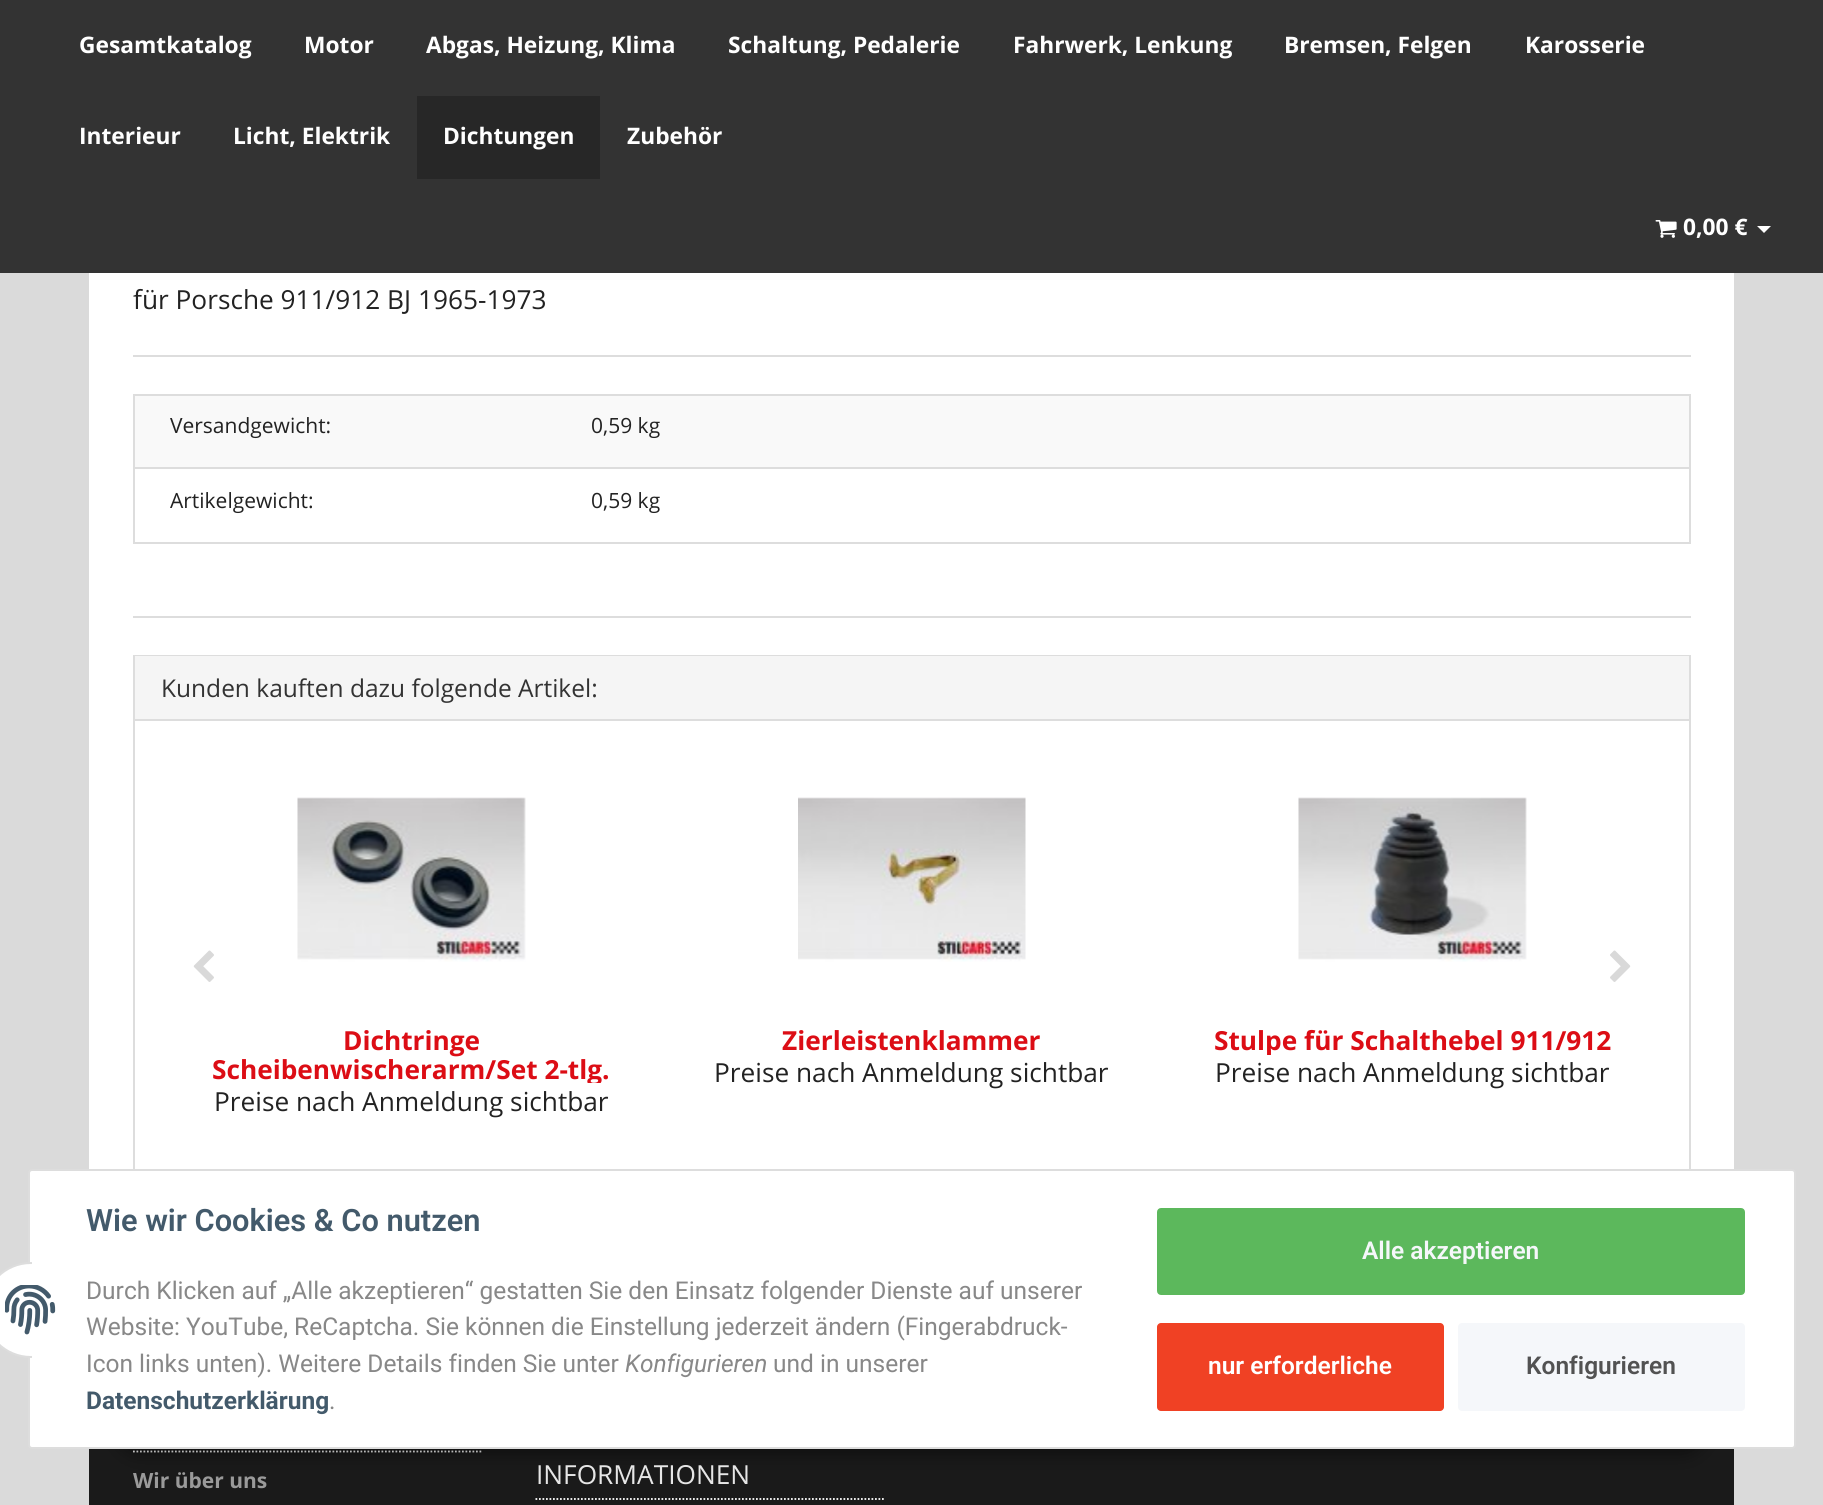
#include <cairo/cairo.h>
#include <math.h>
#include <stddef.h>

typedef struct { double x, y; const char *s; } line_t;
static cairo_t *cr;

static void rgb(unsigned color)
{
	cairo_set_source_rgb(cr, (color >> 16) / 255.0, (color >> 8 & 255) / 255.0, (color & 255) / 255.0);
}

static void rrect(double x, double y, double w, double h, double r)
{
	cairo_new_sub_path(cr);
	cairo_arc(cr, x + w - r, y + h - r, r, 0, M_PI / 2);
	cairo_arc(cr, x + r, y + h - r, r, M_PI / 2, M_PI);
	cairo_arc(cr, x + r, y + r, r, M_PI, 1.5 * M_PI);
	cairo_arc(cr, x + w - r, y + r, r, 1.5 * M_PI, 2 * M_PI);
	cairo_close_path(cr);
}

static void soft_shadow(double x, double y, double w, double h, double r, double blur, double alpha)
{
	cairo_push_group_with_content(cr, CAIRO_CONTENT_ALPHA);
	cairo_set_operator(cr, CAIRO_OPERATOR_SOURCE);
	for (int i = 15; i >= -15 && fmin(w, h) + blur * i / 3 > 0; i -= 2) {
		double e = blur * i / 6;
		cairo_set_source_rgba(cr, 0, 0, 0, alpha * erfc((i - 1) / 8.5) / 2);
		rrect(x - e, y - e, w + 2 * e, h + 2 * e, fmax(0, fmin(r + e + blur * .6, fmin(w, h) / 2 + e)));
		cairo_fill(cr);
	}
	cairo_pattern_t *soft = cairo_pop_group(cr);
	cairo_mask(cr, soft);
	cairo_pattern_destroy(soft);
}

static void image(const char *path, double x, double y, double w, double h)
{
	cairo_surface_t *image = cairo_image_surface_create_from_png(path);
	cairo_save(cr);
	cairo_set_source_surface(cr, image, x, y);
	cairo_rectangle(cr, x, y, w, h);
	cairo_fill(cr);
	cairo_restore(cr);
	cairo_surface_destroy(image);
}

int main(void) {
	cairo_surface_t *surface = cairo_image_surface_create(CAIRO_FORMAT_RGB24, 1823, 1505);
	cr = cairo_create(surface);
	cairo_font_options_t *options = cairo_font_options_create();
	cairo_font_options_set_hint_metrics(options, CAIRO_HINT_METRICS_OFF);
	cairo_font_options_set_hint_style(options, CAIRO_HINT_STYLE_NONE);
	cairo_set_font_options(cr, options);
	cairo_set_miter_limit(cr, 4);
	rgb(0xdadada);
	cairo_paint(cr);
	rgb(0x333333);
	cairo_rectangle(cr, 0, 0, 1823, 273);
	cairo_fill(cr);
	rgb(0x272727);
	cairo_rectangle(cr, 417, 96, 183, 83);
	cairo_fill(cr);
	image("img/1.png", 1655, 220, 22, 18);
	rgb(0xffffff);
	cairo_new_path(cr);
	cairo_move_to(cr, 1757, 226);
	cairo_line_to(cr, 1771, 226);
	cairo_line_to(cr, 1764, 233);
	cairo_close_path(cr);
	cairo_fill(cr);
	cairo_rectangle(cr, 89, 273, 1645, 896);
	cairo_fill(cr);
	rgb(0xdddddd);
	cairo_rectangle(cr, 133, 355, 1558, 2);
	cairo_fill(cr);
	rgb(0xf9f9f9);
	cairo_rectangle(cr, 134, 395, 1556, 73);
	cairo_fill_preserve(cr);
	rgb(0xdddddd);
	cairo_stroke(cr);
	cairo_rectangle(cr, 134, 468, 1556, 75);
	cairo_stroke(cr);
	cairo_rectangle(cr, 133, 616, 1558, 2);
	cairo_fill(cr);
	cairo_rectangle(cr, 134, 656, 1556, 561);
	cairo_stroke(cr);
	rgb(0xf5f5f5);
	cairo_rectangle(cr, 135, 656, 1554, 63);
	cairo_fill(cr);
	rgb(0xdddddd);
	cairo_rectangle(cr, 135, 719, 1554, 2);
	cairo_fill(cr);
	image("img/2.png", 193, 950, 21, 32);
	image("img/3.png", 1610, 950, 21, 32);
	image("img/4.png", 297, 797, 229, 165);
	image("img/5.png", 798, 797, 228, 165);
	image("img/6.png", 1298, 797, 229, 165);
	rgb(0x1a1a1a);
	cairo_rectangle(cr, 89, 1449, 1645, 56);
	cairo_fill(cr);
	cairo_new_path(cr);
	cairo_move_to(cr, 133, 1451.5);
	cairo_line_to(cr, 483, 1451.5);
	rgb(0xffffff);
	cairo_set_line_width(cr, 1.8);
	cairo_set_dash(cr, (double[]){1.75, 1.75}, 2, 0);
	cairo_stroke(cr);
	cairo_new_path(cr);
	cairo_move_to(cr, 535.5, 1499);
	cairo_line_to(cr, 885.5, 1499);
	cairo_stroke(cr);
	rgb(0x000000);
	soft_shadow(117, 1398, 1589, 56, 28, 9, 0.45);
	rgb(0xffffff);
	rrect(29, 1170, 1766, 278, 3);
	cairo_fill_preserve(cr);
	rgb(0xdddddd);
	cairo_set_line_width(cr, 2);
	cairo_set_dash(cr, NULL, 0, 0);
	cairo_stroke(cr);
	rgb(0xffffff);
	cairo_arc(cr, 31, 1310, 47, 0, 2 * M_PI);
	cairo_fill_preserve(cr);
	rgb(0xdddddd);
	cairo_stroke(cr);
	rgb(0xffffff);
	cairo_rectangle(cr, 32, 1262, 47, 96);
	cairo_fill(cr);
	image("img/7.png", 5, 1285, 51, 50);
	rgb(0x5cb85c);
	rrect(1158, 1209, 586, 85, 3);
	cairo_fill_preserve(cr);
	cairo_stroke(cr);
	rgb(0xf04124);
	rrect(1157, 1323, 287, 88, 4);
	cairo_fill(cr);
	rgb(0xf5f7fa);
	rrect(1458, 1323, 287, 88, 4);
	cairo_fill(cr);
	cairo_select_font_face(cr, "Open Sans", CAIRO_FONT_SLANT_NORMAL, CAIRO_FONT_WEIGHT_BOLD);
	cairo_set_font_size(cr, 22.75);
	rgb(0xffffff);
	{
		static const line_t items[] = {
			{79, 53, "Gesamtkatalog"},
			{304, 53, "Motor"},
			{426, 53, "Abgas, Heizung, Klima"},
			{728, 53, "Schaltung, Pedalerie"},
			{1013, 53, "Fahrwerk, Lenkung"},
			{1284, 53, "Bremsen, Felgen"},
			{1525, 53, "Karosserie"},
			{79, 144, "Interieur"},
			{233, 144, "Licht, Elektrik"},
			{443, 144, "Dichtungen"},
			{627, 144, "Zubehör"},
			{1683, 235, "0,00 €"},
		};
		for (size_t i = 0; i < sizeof items / sizeof *items; i++) {
			cairo_move_to(cr, items[i].x, items[i].y);
			cairo_show_text(cr, items[i].s);
		}
	}
	cairo_select_font_face(cr, "Open Sans", CAIRO_FONT_SLANT_NORMAL, CAIRO_FONT_WEIGHT_NORMAL);
	cairo_set_font_size(cr, 26.25);
	rgb(0x222222);
	cairo_move_to(cr, 133, 309);
	cairo_show_text(cr, "für Porsche 911/912 BJ 1965-1973");
	cairo_set_font_size(cr, 21);
	{
		static const line_t items[] = {
			{170, 433, "Versandgewicht:"},
			{591, 433, "0,59 kg"},
			{170, 508, "Artikelgewicht:"},
			{591, 508, "0,59 kg"},
		};
		for (size_t i = 0; i < sizeof items / sizeof *items; i++) {
			cairo_move_to(cr, items[i].x, items[i].y);
			cairo_show_text(cr, items[i].s);
		}
	}
	cairo_set_font_size(cr, 24.5);
	rgb(0x333333);
	cairo_move_to(cr, 161, 697);
	cairo_show_text(cr, "Kunden kauften dazu folgende Artikel:");
	cairo_select_font_face(cr, "Open Sans", CAIRO_FONT_SLANT_NORMAL, CAIRO_FONT_WEIGHT_BOLD);
	cairo_set_font_size(cr, 26.25);
	rgb(0xdc0d15);
	cairo_move_to(cr, 343, 1050);
	cairo_show_text(cr, "Dichtringe");
	cairo_save(cr);
	cairo_rectangle(cr, 194, 1026, 434, 57);
	cairo_clip(cr);
	cairo_move_to(cr, 212, 1079);
	cairo_show_text(cr, "Scheibenwischerarm/Set 2-tlg.");
	cairo_restore(cr);
	cairo_select_font_face(cr, "Open Sans", CAIRO_FONT_SLANT_NORMAL, CAIRO_FONT_WEIGHT_NORMAL);
	rgb(0x222222);
	cairo_move_to(cr, 214, 1111);
	cairo_show_text(cr, "Preise nach Anmeldung sichtbar");
	cairo_select_font_face(cr, "Open Sans", CAIRO_FONT_SLANT_NORMAL, CAIRO_FONT_WEIGHT_BOLD);
	rgb(0xdc0d15);
	cairo_move_to(cr, 782, 1050);
	cairo_show_text(cr, "Zierleistenklammer");
	cairo_select_font_face(cr, "Open Sans", CAIRO_FONT_SLANT_NORMAL, CAIRO_FONT_WEIGHT_NORMAL);
	rgb(0x222222);
	cairo_move_to(cr, 714, 1082);
	cairo_show_text(cr, "Preise nach Anmeldung sichtbar");
	cairo_save(cr);
	cairo_rectangle(cr, 1195, 1026, 434, 29);
	cairo_clip(cr);
	cairo_select_font_face(cr, "Open Sans", CAIRO_FONT_SLANT_NORMAL, CAIRO_FONT_WEIGHT_BOLD);
	rgb(0xdc0d15);
	cairo_move_to(cr, 1214, 1050);
	cairo_show_text(cr, "Stulpe für Schalthebel 911/912");
	cairo_restore(cr);
	cairo_move_to(cr, 1215, 1082);
	cairo_show_text(cr, "Preise nach Anmeldung sichtbar");
	cairo_select_font_face(cr, "Open Sans", CAIRO_FONT_SLANT_NORMAL, CAIRO_FONT_WEIGHT_BOLD);
	cairo_set_font_size(cr, 21);
	rgb(0x9a9a9a);
	cairo_move_to(cr, 133, 1488);
	cairo_show_text(cr, "Wir über uns");
	cairo_select_font_face(cr, "Open Sans", CAIRO_FONT_SLANT_NORMAL, CAIRO_FONT_WEIGHT_NORMAL);
	cairo_set_font_size(cr, 26.25);
	rgb(0xe6e6e6);
	cairo_move_to(cr, 536, 1484);
	cairo_show_text(cr, "INFORMATIONEN");
	cairo_select_font_face(cr, "Roboto SemiBold", CAIRO_FONT_SLANT_NORMAL, CAIRO_FONT_WEIGHT_NORMAL);
	cairo_set_font_size(cr, 30.75);
	rgb(0x435a6b);
	cairo_move_to(cr, 86, 1231);
	cairo_show_text(cr, "Wie wir Cookies & Co nutzen");
	cairo_select_font_face(cr, "Roboto", CAIRO_FONT_SLANT_NORMAL, CAIRO_FONT_WEIGHT_NORMAL);
	cairo_set_font_size(cr, 24.5);
	rgb(0x888888);
	{
		static const line_t items[] = {
			{86, 1299, "Durch Klicken auf „Alle akzeptieren“ gestatten Sie den Einsatz folgender Dienste auf unserer"},
			{86, 1335, "Website: YouTube, ReCaptcha. Sie können die Einstellung jederzeit ändern (Fingerabdruck-"},
			{86, 1372, "Icon links unten). Weitere Details finden Sie unter"},
		};
		for (size_t i = 0; i < sizeof items / sizeof *items; i++) {
			cairo_move_to(cr, items[i].x, items[i].y);
			cairo_show_text(cr, items[i].s);
		}
	}
	cairo_select_font_face(cr, "Roboto", CAIRO_FONT_SLANT_ITALIC, CAIRO_FONT_WEIGHT_NORMAL);
	cairo_move_to(cr, 625, 1372);
	cairo_show_text(cr, "Konfigurieren");
	cairo_select_font_face(cr, "Roboto", CAIRO_FONT_SLANT_NORMAL, CAIRO_FONT_WEIGHT_NORMAL);
	cairo_move_to(cr, 773, 1372);
	cairo_show_text(cr, "und in unserer");
	cairo_select_font_face(cr, "Roboto", CAIRO_FONT_SLANT_NORMAL, CAIRO_FONT_WEIGHT_BOLD);
	rgb(0x435a6b);
	cairo_move_to(cr, 86, 1409);
	cairo_show_text(cr, "Datenschutzerklärung");
	cairo_select_font_face(cr, "Roboto", CAIRO_FONT_SLANT_NORMAL, CAIRO_FONT_WEIGHT_NORMAL);
	rgb(0x888888);
	cairo_move_to(cr, 329, 1409);
	cairo_show_text(cr, ".");
	cairo_select_font_face(cr, "Roboto SemiBold", CAIRO_FONT_SLANT_NORMAL, CAIRO_FONT_WEIGHT_NORMAL);
	rgb(0xf5f7fa);
	cairo_move_to(cr, 1362, 1259);
	cairo_show_text(cr, "Alle akzeptieren");
	rgb(0xffffff);
	cairo_move_to(cr, 1208, 1374);
	cairo_show_text(cr, "nur erforderliche");
	rgb(0x525252);
	cairo_move_to(cr, 1526, 1374);
	cairo_show_text(cr, "Konfigurieren");
	cairo_surface_write_to_png(surface, "page.png");
	cairo_font_options_destroy(options);
	cairo_destroy(cr);
	cairo_surface_destroy(surface);
	return 0;
}
